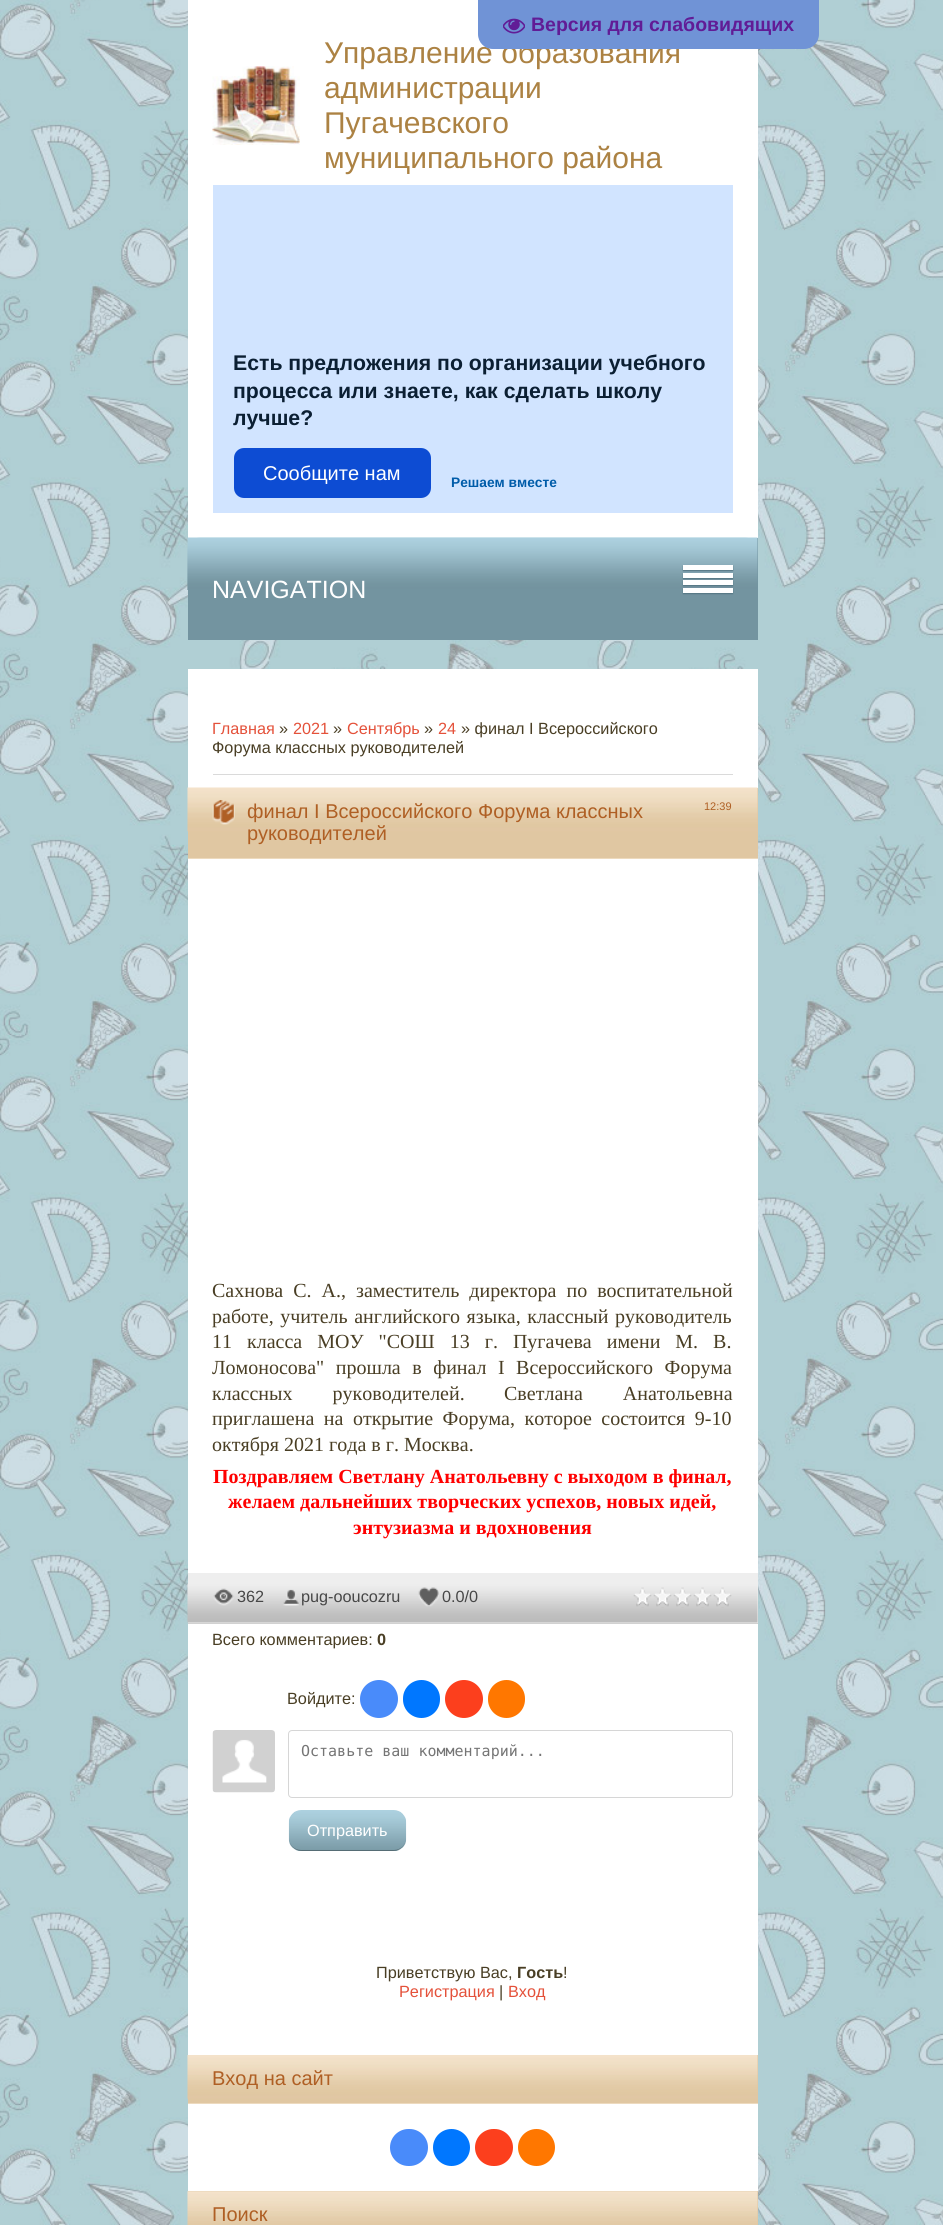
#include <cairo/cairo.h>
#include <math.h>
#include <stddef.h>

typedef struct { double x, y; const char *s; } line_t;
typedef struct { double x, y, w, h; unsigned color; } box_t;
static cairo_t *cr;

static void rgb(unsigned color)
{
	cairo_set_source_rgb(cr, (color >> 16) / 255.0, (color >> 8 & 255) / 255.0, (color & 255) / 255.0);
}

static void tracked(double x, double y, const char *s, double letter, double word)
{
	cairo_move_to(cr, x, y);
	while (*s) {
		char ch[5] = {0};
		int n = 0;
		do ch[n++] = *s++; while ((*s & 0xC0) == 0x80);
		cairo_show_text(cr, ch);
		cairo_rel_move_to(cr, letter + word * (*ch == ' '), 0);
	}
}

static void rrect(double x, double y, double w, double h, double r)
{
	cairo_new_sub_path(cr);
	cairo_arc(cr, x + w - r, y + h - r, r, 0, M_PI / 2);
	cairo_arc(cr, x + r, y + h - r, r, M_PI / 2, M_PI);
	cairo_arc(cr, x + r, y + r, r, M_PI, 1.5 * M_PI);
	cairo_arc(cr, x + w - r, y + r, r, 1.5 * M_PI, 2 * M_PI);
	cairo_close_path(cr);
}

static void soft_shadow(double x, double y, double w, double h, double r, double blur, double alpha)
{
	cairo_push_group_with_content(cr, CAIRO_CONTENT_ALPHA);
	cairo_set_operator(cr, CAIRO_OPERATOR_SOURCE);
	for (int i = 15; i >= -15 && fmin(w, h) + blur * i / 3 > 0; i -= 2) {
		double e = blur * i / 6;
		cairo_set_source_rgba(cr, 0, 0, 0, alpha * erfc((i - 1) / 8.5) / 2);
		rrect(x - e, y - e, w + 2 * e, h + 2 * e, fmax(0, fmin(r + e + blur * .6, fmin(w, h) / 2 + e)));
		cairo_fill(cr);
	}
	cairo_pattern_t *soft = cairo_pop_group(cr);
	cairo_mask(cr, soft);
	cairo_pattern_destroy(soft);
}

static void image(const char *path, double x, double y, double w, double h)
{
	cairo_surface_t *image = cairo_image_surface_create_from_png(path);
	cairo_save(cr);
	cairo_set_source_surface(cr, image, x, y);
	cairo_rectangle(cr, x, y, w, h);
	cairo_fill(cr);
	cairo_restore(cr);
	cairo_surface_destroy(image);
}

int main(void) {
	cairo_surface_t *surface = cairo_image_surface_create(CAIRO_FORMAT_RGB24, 943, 2225);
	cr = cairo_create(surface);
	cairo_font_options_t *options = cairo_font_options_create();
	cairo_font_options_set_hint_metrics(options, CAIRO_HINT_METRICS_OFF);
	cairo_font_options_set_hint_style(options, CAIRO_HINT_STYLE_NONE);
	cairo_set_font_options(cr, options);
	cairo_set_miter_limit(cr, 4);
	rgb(0xffffff);
	cairo_paint(cr);
	image("img/1.png", 0, 0, 943, 2225);
	rgb(0xffffff);
	cairo_rectangle(cr, 188, 0, 570, 538);
	cairo_fill(cr);
	image("img/3.png", 212, 66, 88, 79);
	rgb(0xd1e4ff);
	cairo_rectangle(cr, 213, 185, 520, 328);
	cairo_fill(cr);
	rgb(0x0d4cd3);
	rrect(234, 448, 197, 50, 10);
	cairo_fill(cr);
	image("img/4.png", 187, 537, 561, 53);
	rgb(0x7394a0);
	cairo_rectangle(cr, 188, 538, 570, 102);
	cairo_fill(cr);
	image("img/5.png", 187, 537, 571, 53);
	rgb(0x557684);
	soft_shadow(683, 566, 50, 5, 0, 0.5, 1);
	rgb(0xffffff);
	cairo_rectangle(cr, 683, 565, 50, 5);
	cairo_fill(cr);
	rgb(0x557684);
	soft_shadow(683, 574, 50, 5, 0, 0.5, 1);
	rgb(0xffffff);
	cairo_rectangle(cr, 683, 573, 50, 5);
	cairo_fill(cr);
	rgb(0x557684);
	soft_shadow(683, 581, 50, 5, 0, 0.5, 1);
	rgb(0xffffff);
	cairo_rectangle(cr, 683, 580, 50, 5);
	cairo_fill(cr);
	rgb(0x557684);
	soft_shadow(683, 589, 50, 5, 0, 0.5, 1);
	{
		static const box_t items[] = {
			{683, 588, 50, 5, 0xffffff},
			{188, 669, 570, 1522, 0xffffff},
			{213, 774, 520, 1, 0xdadada},
			{188, 788, 570, 70, 0xe0c7a2},
		};
		for (size_t i = 0; i < sizeof items / sizeof *items; i++) {
			rgb(items[i].color);
			cairo_rectangle(cr, items[i].x, items[i].y, items[i].w, items[i].h);
			cairo_fill(cr);
		}
	}
	image("img/6.png", 187, 787, 571, 45);
	rgb(0xeddabe);
	cairo_rectangle(cr, 188, 858, 570, 1);
	cairo_fill(cr);
	image("img/7.png", 212, 800, 23, 25);
	rgb(0xeeeeee);
	cairo_rectangle(cr, 188, 1573, 570, 50);
	cairo_fill(cr);
	image("img/8.png", 187, 1583, 571, 40);
	rgb(0xd1d1d1);
	cairo_rectangle(cr, 188, 1623, 570, 1);
	cairo_fill(cr);
	image("img/9.png", 213, 1588, 21, 18);
	image("img/10.png", 283, 1589, 16, 17);
	image("img/11.png", 418, 1587, 21, 20);
	image("img/12.png", 633, 1587, 99, 21);
	rgb(0x498bfa);
	cairo_arc(cr, 379, 1699, 19, 0, 2 * M_PI);
	cairo_fill(cr);
	rgb(0x0077ff);
	rrect(403, 1680, 37, 38, 18.5);
	cairo_fill(cr);
	rgb(0xfc3f1d);
	cairo_arc(cr, 464, 1699, 19, 0, 2 * M_PI);
	cairo_fill(cr);
	rgb(0xff7700);
	rrect(488, 1680, 37, 38, 18.5);
	cairo_fill(cr);
	image("img/13.png", 212, 1730, 63, 63);
	rrect(288.5, 1730.5, 444, 67, 3.5);
	rgb(0xd6d6d6);
	cairo_set_line_width(cr, 1);
	cairo_stroke(cr);
	image("img/14.png", 288, 1810, 119, 41);
	rgb(0x566d75);
	cairo_new_path(cr);
	cairo_move_to(cr, 289, 1838);
	cairo_curve_to(cr, 289, 1845, 295, 1851, 302, 1851);
	cairo_line_to(cr, 393, 1851);
	cairo_curve_to(cr, 400, 1851, 406, 1845, 406, 1838);
	cairo_curve_to(cr, 406, 1844, 401, 1850, 394, 1850);
	cairo_line_to(cr, 301, 1850);
	cairo_curve_to(cr, 294, 1850, 289, 1844, 289, 1838);
	cairo_close_path(cr);
	cairo_fill(cr);
	rgb(0xe0c7a2);
	cairo_rectangle(cr, 188, 2055, 570, 48);
	cairo_fill(cr);
	image("img/15.png", 187, 2055, 571, 44);
	rgb(0xeddabe);
	cairo_rectangle(cr, 188, 2103, 570, 1);
	cairo_fill(cr);
	rgb(0x498bfa);
	rrect(390, 2129, 38, 37, 18.5);
	cairo_fill(cr);
	rgb(0x0077ff);
	cairo_arc(cr, 451.5, 2147.5, 18.5, 0, 2 * M_PI);
	cairo_fill(cr);
	rgb(0xfc3f1d);
	rrect(475, 2129, 38, 37, 18.5);
	cairo_fill(cr);
	rgb(0xff7700);
	cairo_arc(cr, 536.5, 2147.5, 18.5, 0, 2 * M_PI);
	cairo_fill(cr);
	rgb(0xe0c7a2);
	cairo_rectangle(cr, 188, 2191, 570, 34);
	cairo_fill(cr);
	image("img/16.png", 187, 2191, 571, 34);
	cairo_select_font_face(cr, "Liberation Sans", CAIRO_FONT_SLANT_NORMAL, CAIRO_FONT_WEIGHT_NORMAL);
	cairo_set_font_size(cr, 30);
	rgb(0xac8243);
	cairo_move_to(cr, 324, 63);
	cairo_show_text(cr, "Управление образования");
	rgb(0x7093d6);
	cairo_new_path(cr);
	cairo_move_to(cr, 478, 0);
	cairo_line_to(cr, 819, 0);
	cairo_line_to(cr, 819, 34);
	cairo_curve_to(cr, 819, 42.5, 812.5, 49, 804, 49);
	cairo_line_to(cr, 493, 49);
	cairo_curve_to(cr, 484.5, 49, 478, 42.5, 478, 34);
	cairo_close_path(cr);
	cairo_fill(cr);
	image("img/2.png", 503, 18, 22, 16);
	cairo_select_font_face(cr, "Liberation Sans", CAIRO_FONT_SLANT_NORMAL, CAIRO_FONT_WEIGHT_BOLD);
	cairo_set_font_size(cr, 19.5);
	rgb(0x611c96);
	cairo_move_to(cr, 531, 31);
	cairo_show_text(cr, "Версия для слабовидящих");
	cairo_select_font_face(cr, "Liberation Sans", CAIRO_FONT_SLANT_NORMAL, CAIRO_FONT_WEIGHT_NORMAL);
	cairo_set_font_size(cr, 30);
	rgb(0xac8243);
	{
		static const line_t items[] = {
			{324, 98, "администрации"},
			{324, 133, "Пугачевского"},
			{324, 168, "муниципального района"},
		};
		for (size_t i = 0; i < sizeof items / sizeof *items; i++) {
			cairo_move_to(cr, items[i].x, items[i].y);
			cairo_show_text(cr, items[i].s);
		}
	}
	cairo_select_font_face(cr, "Liberation Sans", CAIRO_FONT_SLANT_NORMAL, CAIRO_FONT_WEIGHT_BOLD);
	cairo_set_font_size(cr, 21.25);
	rgb(0x0b1f33);
	{
		static const line_t items[] = {
			{233, 370, "Есть предложения по организации учебного"},
			{233, 398, "процесса или знаете, как сделать школу"},
			{233, 425, "лучше?"},
		};
		for (size_t i = 0; i < sizeof items / sizeof *items; i++) {
			cairo_move_to(cr, items[i].x, items[i].y);
			cairo_show_text(cr, items[i].s);
		}
	}
	cairo_select_font_face(cr, "Liberation Sans", CAIRO_FONT_SLANT_NORMAL, CAIRO_FONT_WEIGHT_NORMAL);
	cairo_set_font_size(cr, 20);
	rgb(0xffffff);
	cairo_move_to(cr, 263, 480);
	cairo_show_text(cr, "Сообщите нам");
	cairo_select_font_face(cr, "Liberation Sans", CAIRO_FONT_SLANT_NORMAL, CAIRO_FONT_WEIGHT_BOLD);
	cairo_set_font_size(cr, 13.75);
	rgb(0x005ca9);
	cairo_move_to(cr, 451, 487);
	cairo_show_text(cr, "Решаем вместе");
	cairo_select_font_face(cr, "Liberation Sans", CAIRO_FONT_SLANT_NORMAL, CAIRO_FONT_WEIGHT_NORMAL);
	cairo_set_font_size(cr, 25);
	rgb(0xffffff);
	cairo_move_to(cr, 212, 598);
	cairo_show_text(cr, "NAVIGATION");
	cairo_set_font_size(cr, 16.25);
	rgb(0xe4513a);
	cairo_move_to(cr, 212, 734);
	cairo_show_text(cr, "Главная");
	rgb(0x493e24);
	cairo_move_to(cr, 279, 734);
	cairo_show_text(cr, "»");
	rgb(0xe4513a);
	cairo_move_to(cr, 293, 734);
	cairo_show_text(cr, "2021");
	rgb(0x493e24);
	cairo_move_to(cr, 333, 734);
	cairo_show_text(cr, "»");
	rgb(0xe4513a);
	cairo_move_to(cr, 347, 734);
	cairo_show_text(cr, "Сентябрь");
	rgb(0x493e24);
	cairo_move_to(cr, 424, 734);
	cairo_show_text(cr, "»");
	rgb(0xe4513a);
	cairo_move_to(cr, 438, 734);
	cairo_show_text(cr, "24");
	rgb(0x493e24);
	cairo_move_to(cr, 461, 734);
	cairo_show_text(cr, "» финал I Всероссийского");
	cairo_move_to(cr, 212, 753);
	cairo_show_text(cr, "Форума классных руководителей");
	cairo_set_font_size(cr, 20);
	rgb(0xaf5f24);
	cairo_move_to(cr, 247, 818);
	cairo_show_text(cr, "финал I Всероссийского Форума классных");
	cairo_set_font_size(cr, 11);
	cairo_move_to(cr, 704, 810);
	cairo_show_text(cr, "12:39");
	cairo_set_font_size(cr, 20);
	cairo_move_to(cr, 247, 840);
	cairo_show_text(cr, "руководителей");
	cairo_select_font_face(cr, "Liberation Serif", CAIRO_FONT_SLANT_NORMAL, CAIRO_FONT_WEIGHT_NORMAL);
	rgb(0x493e24);
	tracked(212, 1297, "Сахнова С. А., заместитель директора по воспитательной", 0, 5);
	tracked(212, 1323, "работе, учитель английского языка, классный руководитель", 0, 1.5);
	tracked(212, 1348, "11 класса МОУ \"СОШ 13 г. Пугачева имени М. В.", 0, 10);
	tracked(212, 1374, "Ломоносова\" прошла в финал I Всероссийского Форума", 0, 6.5);
	tracked(212, 1400, "классных руководителей.", 0, 35);
	tracked(504, 1400, "Светлана Анатольевна", 0, 35);
	tracked(212, 1425, "приглашена на открытие Форума, которое состоится 9-10", 0, 4.5);
	cairo_move_to(cr, 212, 1451);
	cairo_show_text(cr, "октября 2021 года в г. Москва.");
	cairo_select_font_face(cr, "Liberation Serif", CAIRO_FONT_SLANT_NORMAL, CAIRO_FONT_WEIGHT_BOLD);
	rgb(0xff0000);
	{
		static const line_t items[] = {
			{213, 1483, "Поздравляем Светлану Анатольевну с выходом в финал,"},
			{228, 1508, "желаем дальнейших творческих успехов, новых идей,"},
			{353, 1534, "энтузиазма и вдохновения"},
		};
		for (size_t i = 0; i < sizeof items / sizeof *items; i++) {
			cairo_move_to(cr, items[i].x, items[i].y);
			cairo_show_text(cr, items[i].s);
		}
	}
	cairo_select_font_face(cr, "Liberation Sans", CAIRO_FONT_SLANT_NORMAL, CAIRO_FONT_WEIGHT_NORMAL);
	cairo_set_font_size(cr, 16.25);
	rgb(0x474747);
	{
		static const line_t items[] = {
			{237, 1602, "362"},
			{301, 1602, "pug-ooucozru"},
			{442, 1602, "0.0/0"},
		};
		for (size_t i = 0; i < sizeof items / sizeof *items; i++) {
			cairo_move_to(cr, items[i].x, items[i].y);
			cairo_show_text(cr, items[i].s);
		}
	}
	rgb(0x493e24);
	cairo_move_to(cr, 212, 1645);
	cairo_show_text(cr, "Всего комментариев:");
	cairo_select_font_face(cr, "Liberation Sans", CAIRO_FONT_SLANT_NORMAL, CAIRO_FONT_WEIGHT_BOLD);
	cairo_move_to(cr, 377, 1645);
	cairo_show_text(cr, "0");
	cairo_select_font_face(cr, "Liberation Sans", CAIRO_FONT_SLANT_NORMAL, CAIRO_FONT_WEIGHT_NORMAL);
	cairo_move_to(cr, 287, 1704);
	cairo_show_text(cr, "Войдите:");
	cairo_select_font_face(cr, "DejaVu Sans Mono", CAIRO_FONT_SLANT_NORMAL, CAIRO_FONT_WEIGHT_NORMAL);
	cairo_set_font_size(cr, 15);
	rgb(0x757575);
	cairo_move_to(cr, 301, 1756);
	cairo_show_text(cr, "Оставьте ваш комментарий...");
	cairo_select_font_face(cr, "Liberation Sans", CAIRO_FONT_SLANT_NORMAL, CAIRO_FONT_WEIGHT_NORMAL);
	cairo_set_font_size(cr, 16.25);
	rgb(0xffffff);
	cairo_move_to(cr, 307, 1836);
	cairo_show_text(cr, "Отправить");
	rgb(0x493e24);
	cairo_move_to(cr, 376, 1978);
	cairo_show_text(cr, "Приветствую Вас,");
	cairo_select_font_face(cr, "Liberation Sans", CAIRO_FONT_SLANT_NORMAL, CAIRO_FONT_WEIGHT_BOLD);
	cairo_move_to(cr, 517, 1978);
	cairo_show_text(cr, "Гость");
	cairo_select_font_face(cr, "Liberation Sans", CAIRO_FONT_SLANT_NORMAL, CAIRO_FONT_WEIGHT_NORMAL);
	cairo_move_to(cr, 563, 1978);
	cairo_show_text(cr, "!");
	rgb(0xe4513a);
	cairo_move_to(cr, 399, 1997);
	cairo_show_text(cr, "Регистрация");
	rgb(0x493e24);
	cairo_move_to(cr, 499, 1997);
	cairo_show_text(cr, "|");
	rgb(0xe4513a);
	cairo_move_to(cr, 508, 1997);
	cairo_show_text(cr, "Вход");
	cairo_set_font_size(cr, 20);
	rgb(0xaf5f24);
	cairo_move_to(cr, 212, 2085);
	cairo_show_text(cr, "Вход на сайт");
	cairo_move_to(cr, 212, 2221);
	cairo_show_text(cr, "Поиск");
	cairo_surface_write_to_png(surface, "page.png");
	cairo_font_options_destroy(options);
	cairo_destroy(cr);
	cairo_surface_destroy(surface);
	return 0;
}
